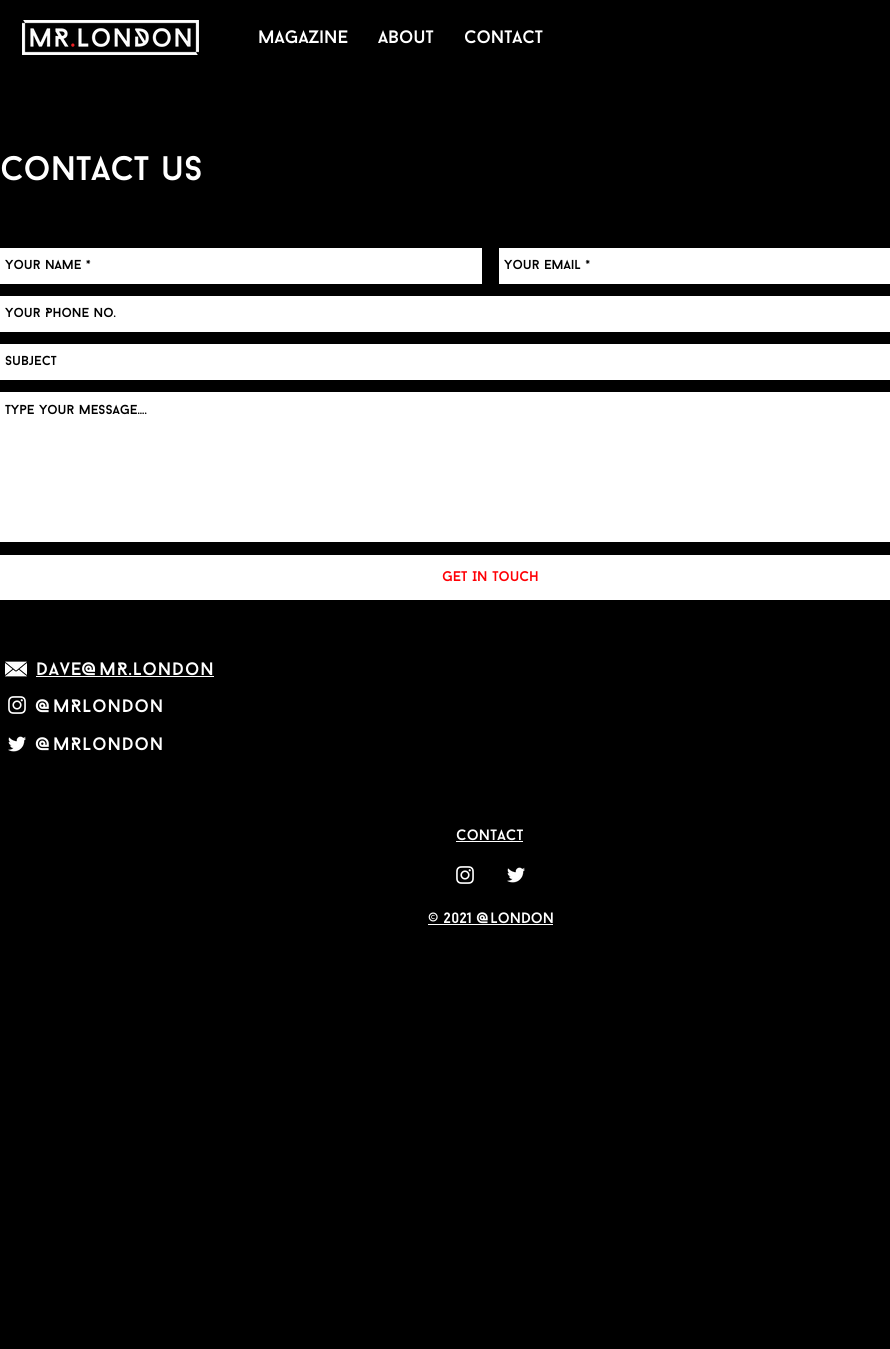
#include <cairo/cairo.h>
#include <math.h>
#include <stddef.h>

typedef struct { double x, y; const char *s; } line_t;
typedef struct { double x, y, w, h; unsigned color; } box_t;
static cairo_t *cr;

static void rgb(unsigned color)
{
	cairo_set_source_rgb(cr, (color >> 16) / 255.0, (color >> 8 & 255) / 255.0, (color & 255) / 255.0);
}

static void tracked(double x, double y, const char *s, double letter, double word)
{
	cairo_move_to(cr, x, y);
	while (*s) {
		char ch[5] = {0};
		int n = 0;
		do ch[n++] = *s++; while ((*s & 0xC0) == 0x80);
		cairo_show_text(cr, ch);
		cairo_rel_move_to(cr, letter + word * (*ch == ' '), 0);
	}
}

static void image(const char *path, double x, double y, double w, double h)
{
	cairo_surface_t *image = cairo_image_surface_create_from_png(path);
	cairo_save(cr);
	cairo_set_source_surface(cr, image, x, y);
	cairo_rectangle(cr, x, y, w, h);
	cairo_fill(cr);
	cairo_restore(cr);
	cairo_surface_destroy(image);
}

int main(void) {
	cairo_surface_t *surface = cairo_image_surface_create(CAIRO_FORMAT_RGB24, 890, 1349);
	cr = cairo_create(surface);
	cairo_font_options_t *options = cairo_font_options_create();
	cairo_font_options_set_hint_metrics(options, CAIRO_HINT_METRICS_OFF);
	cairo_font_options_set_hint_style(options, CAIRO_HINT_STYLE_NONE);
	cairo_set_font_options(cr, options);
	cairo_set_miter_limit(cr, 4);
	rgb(0x000000);
	cairo_paint(cr);
	image("img/1.png", 22, 20, 177, 35);
	{
		static const box_t items[] = {
			{0, 248, 482, 36, 0xffffff},
			{499, 248, 391, 36, 0xffffff},
			{0, 296, 890, 36, 0xffffff},
			{0, 344, 890, 36, 0xffffff},
			{0, 392, 890, 150, 0xffffff},
			{0, 555, 890, 45, 0xffffff},
		};
		for (size_t i = 0; i < sizeof items / sizeof *items; i++) {
			rgb(items[i].color);
			cairo_rectangle(cr, items[i].x, items[i].y, items[i].w, items[i].h);
			cairo_fill(cr);
		}
	}
	image("img/2.png", 5, 661, 22, 16);
	cairo_rectangle(cr, 36, 676, 178, 1);
	cairo_fill(cr);
	image("img/3.png", 8, 696, 18, 18);
	image("img/4.png", 8, 736, 18, 16);
	cairo_rectangle(cr, 456, 841, 67, 1);
	cairo_fill(cr);
	image("img/3.png", 456, 866, 18, 18);
	image("img/4.png", 507, 867, 18, 16);
	cairo_rectangle(cr, 428, 924, 125, 1);
	cairo_fill(cr);
	cairo_select_font_face(cr, "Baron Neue", CAIRO_FONT_SLANT_NORMAL, CAIRO_FONT_WEIGHT_NORMAL);
	cairo_set_font_size(cr, 18);
	{
		static const line_t items[] = {
			{258, 43, "magazine"},
			{378, 43, "ABouT"},
			{464, 43, "CoNTACT"},
		};
		for (size_t i = 0; i < sizeof items / sizeof *items; i++) {
			cairo_move_to(cr, items[i].x, items[i].y);
			cairo_show_text(cr, items[i].s);
		}
	}
	cairo_set_font_size(cr, 34);
	cairo_move_to(cr, 0, 180);
	cairo_show_text(cr, "CoNTACT uS");
	cairo_set_font_size(cr, 13);
	rgb(0x000000);
	{
		static const line_t items[] = {
			{5, 269, "Your Name *"},
			{504, 269, "Your Email *"},
			{5, 317, "Your Phone No."},
			{5, 365, "Subject"},
			{5, 414, "Type your message...."},
		};
		for (size_t i = 0; i < sizeof items / sizeof *items; i++) {
			cairo_move_to(cr, items[i].x, items[i].y);
			cairo_show_text(cr, items[i].s);
		}
	}
	cairo_set_font_size(cr, 14);
	rgb(0xff0005);
	cairo_move_to(cr, 442, 581);
	cairo_show_text(cr, "GET IN TouCH");
	cairo_set_font_size(cr, 18);
	rgb(0xffffff);
	{
		static const line_t items[] = {
			{36, 675, "dave@MR.LoNDoN"},
			{36, 712, "@MRLoNDoN"},
			{36, 750, "@MRLoNDoN"},
		};
		for (size_t i = 0; i < sizeof items / sizeof *items; i++) {
			tracked(items[i].x, items[i].y, items[i].s, 0.9, 0);
		}
	}
	cairo_set_font_size(cr, 15);
	tracked(456, 840, "Contact", 0.25, 0);
	cairo_move_to(cr, 428, 923);
	cairo_show_text(cr, "© 2021 @London");
	cairo_surface_write_to_png(surface, "page.png");
	cairo_font_options_destroy(options);
	cairo_destroy(cr);
	cairo_surface_destroy(surface);
	return 0;
}
